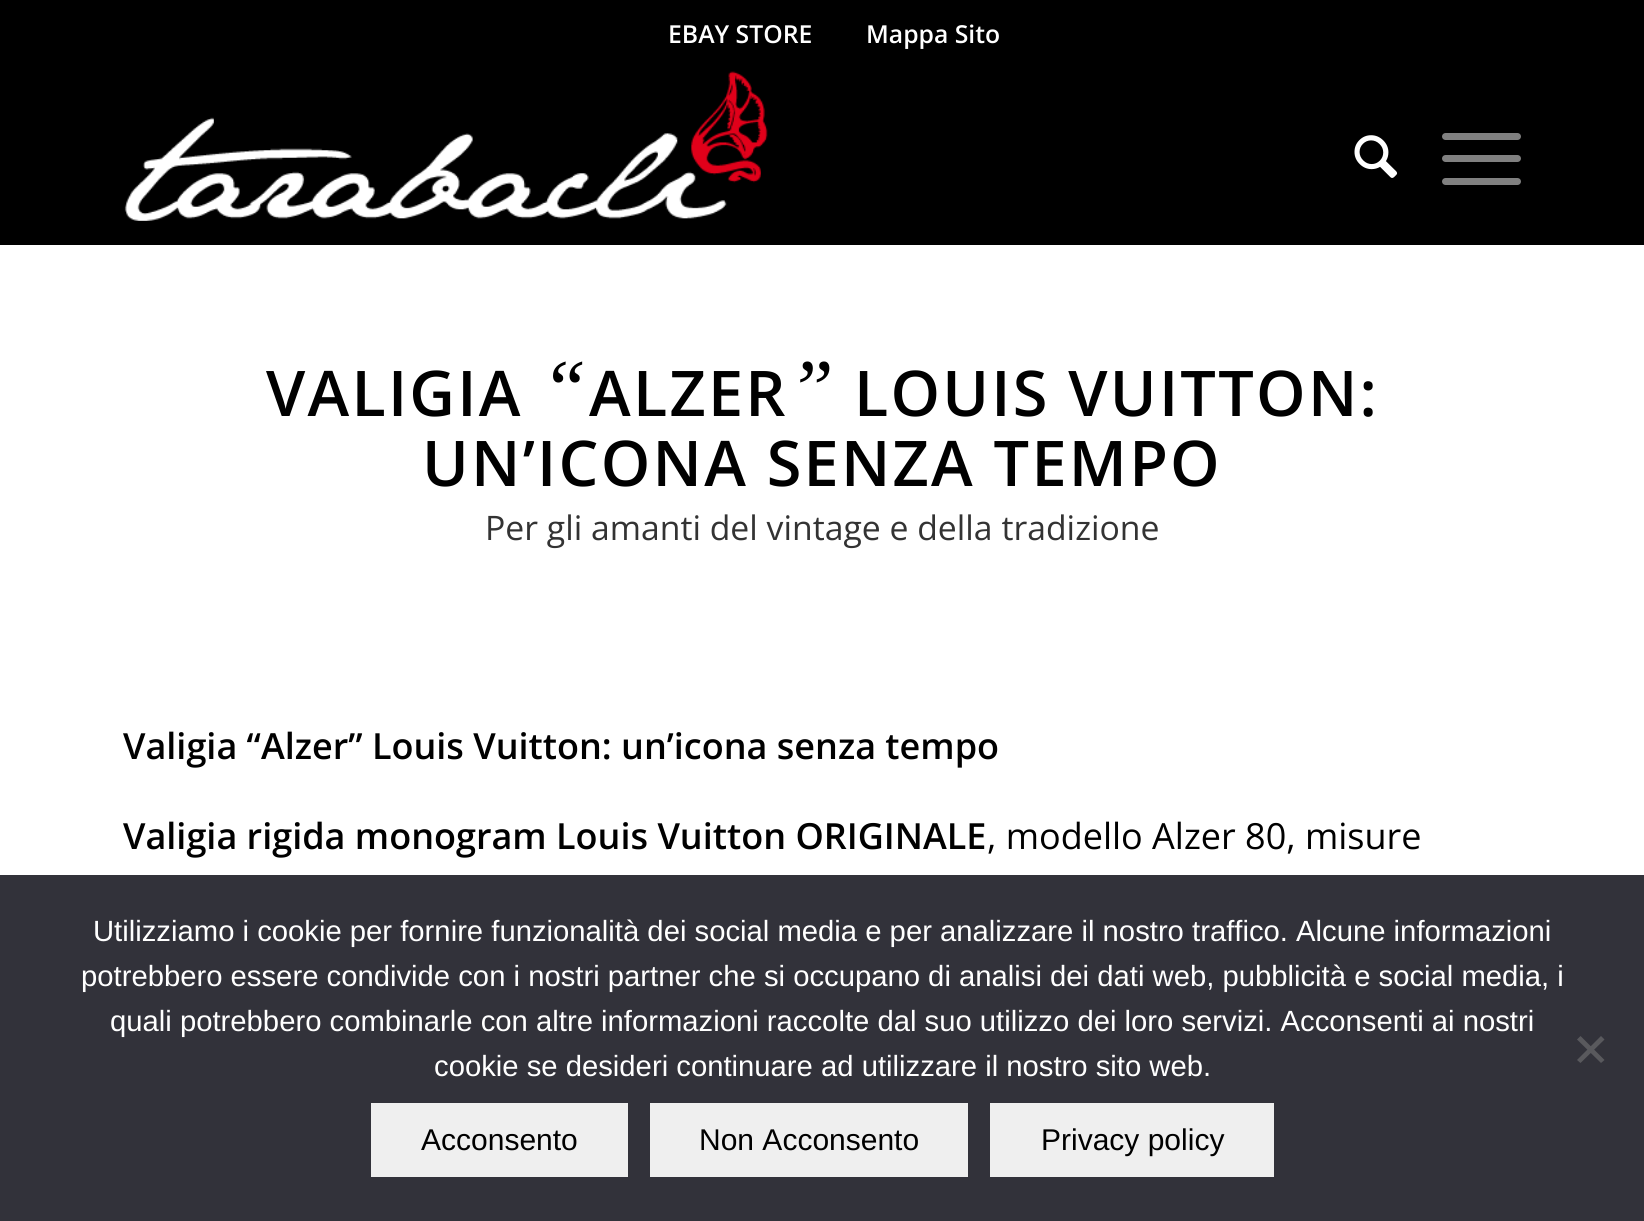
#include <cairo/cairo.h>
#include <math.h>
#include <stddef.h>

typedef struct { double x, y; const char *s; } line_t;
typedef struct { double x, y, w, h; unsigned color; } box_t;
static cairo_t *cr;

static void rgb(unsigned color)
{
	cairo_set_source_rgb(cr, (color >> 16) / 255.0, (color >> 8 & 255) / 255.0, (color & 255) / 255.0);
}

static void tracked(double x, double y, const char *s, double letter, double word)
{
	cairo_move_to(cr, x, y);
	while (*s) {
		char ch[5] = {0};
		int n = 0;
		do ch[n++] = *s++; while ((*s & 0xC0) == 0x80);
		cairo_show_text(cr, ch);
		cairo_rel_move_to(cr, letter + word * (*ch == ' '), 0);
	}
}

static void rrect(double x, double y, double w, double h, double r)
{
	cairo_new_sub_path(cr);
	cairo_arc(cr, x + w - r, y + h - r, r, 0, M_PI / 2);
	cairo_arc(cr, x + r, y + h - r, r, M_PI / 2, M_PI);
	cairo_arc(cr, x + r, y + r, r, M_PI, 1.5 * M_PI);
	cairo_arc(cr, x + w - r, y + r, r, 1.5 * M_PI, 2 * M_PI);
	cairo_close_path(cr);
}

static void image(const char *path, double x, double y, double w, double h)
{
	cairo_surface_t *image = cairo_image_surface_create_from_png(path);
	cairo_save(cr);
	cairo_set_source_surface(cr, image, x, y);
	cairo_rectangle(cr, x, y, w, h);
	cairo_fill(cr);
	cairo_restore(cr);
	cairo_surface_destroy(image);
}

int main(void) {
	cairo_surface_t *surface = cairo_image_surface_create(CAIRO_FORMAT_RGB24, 1644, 1221);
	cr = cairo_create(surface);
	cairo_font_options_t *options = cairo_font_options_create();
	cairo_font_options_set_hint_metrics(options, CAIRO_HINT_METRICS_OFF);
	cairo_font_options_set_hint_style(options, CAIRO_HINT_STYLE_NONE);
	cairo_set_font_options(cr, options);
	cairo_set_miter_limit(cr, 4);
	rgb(0xffffff);
	cairo_paint(cr);
	rgb(0x000000);
	cairo_rectangle(cr, 0, 0, 1644, 245);
	cairo_fill(cr);
	image("img/1.png", 124, 71, 644, 150);
	image("img/2.png", 1354, 135, 44, 43);
	rgb(0x808080);
	rrect(1442, 155, 79, 7, 3.5);
	cairo_fill(cr);
	rrect(1442, 133, 79, 7, 3.5);
	cairo_fill(cr);
	rrect(1442, 178, 79, 7, 3.5);
	cairo_fill(cr);
	rgb(0x32323a);
	cairo_rectangle(cr, 0, 875, 1644, 346);
	cairo_fill(cr);
	rgb(0x59595d);
	cairo_new_path(cr);
	cairo_move_to(cr, 1601, 1036);
	cairo_line_to(cr, 1604.5, 1039.5);
	cairo_line_to(cr, 1580.5, 1063);
	cairo_line_to(cr, 1577, 1060);
	cairo_close_path(cr);
	cairo_fill(cr);
	cairo_new_path(cr);
	cairo_move_to(cr, 1577, 1039.5);
	cairo_line_to(cr, 1580.5, 1036);
	cairo_line_to(cr, 1604.5, 1060);
	cairo_line_to(cr, 1601, 1063);
	cairo_close_path(cr);
	cairo_fill(cr);
	{
		static const box_t items[] = {
			{371, 1103, 257, 74, 0xefefef},
			{650, 1103, 318, 74, 0xefefef},
			{990, 1103, 284, 74, 0xefefef},
		};
		for (size_t i = 0; i < sizeof items / sizeof *items; i++) {
			rgb(items[i].color);
			cairo_rectangle(cr, items[i].x, items[i].y, items[i].w, items[i].h);
			cairo_fill(cr);
		}
	}
	cairo_select_font_face(cr, "Open Sans SemiBold", CAIRO_FONT_SLANT_NORMAL, CAIRO_FONT_WEIGHT_NORMAL);
	cairo_set_font_size(cr, 24.75);
	rgb(0xffffff);
	cairo_move_to(cr, 668, 43);
	cairo_show_text(cr, "EBAY STORE");
	cairo_move_to(cr, 866, 43);
	cairo_show_text(cr, "Mappa Sito");
	cairo_set_font_size(cr, 63);
	rgb(0x000000);
	tracked(266, 416, "VALIGIA", 2.25, 0);
	cairo_select_font_face(cr, "Liberation Serif", CAIRO_FONT_SLANT_ITALIC, CAIRO_FONT_WEIGHT_NORMAL);
	cairo_set_font_size(cr, 82);
	tracked(541, 416, "“", 2.25, 0);
	cairo_select_font_face(cr, "Open Sans SemiBold", CAIRO_FONT_SLANT_NORMAL, CAIRO_FONT_WEIGHT_NORMAL);
	cairo_set_font_size(cr, 63);
	tracked(589, 416, "ALZER", 2.25, 0);
	cairo_select_font_face(cr, "Liberation Serif", CAIRO_FONT_SLANT_ITALIC, CAIRO_FONT_WEIGHT_NORMAL);
	cairo_set_font_size(cr, 82);
	tracked(788, 416, "”", 2.25, 0);
	cairo_select_font_face(cr, "Open Sans SemiBold", CAIRO_FONT_SLANT_NORMAL, CAIRO_FONT_WEIGHT_NORMAL);
	cairo_set_font_size(cr, 63);
	tracked(854, 416, "LOUIS VUITTON:", 2.25, 0);
	tracked(422, 486, "UN’ICONA SENZA TEMPO", 2.25, 0);
	cairo_select_font_face(cr, "Open Sans", CAIRO_FONT_SLANT_NORMAL, CAIRO_FONT_WEIGHT_NORMAL);
	cairo_set_font_size(cr, 33.75);
	rgb(0x333333);
	cairo_move_to(cr, 485, 540);
	cairo_show_text(cr, "Per gli amanti del vintage e della tradizione");
	cairo_select_font_face(cr, "Open Sans SemiBold", CAIRO_FONT_SLANT_NORMAL, CAIRO_FONT_WEIGHT_NORMAL);
	cairo_set_font_size(cr, 36);
	rgb(0x000000);
	cairo_move_to(cr, 123, 759);
	cairo_show_text(cr, "Valigia “Alzer” Louis Vuitton: un’icona senza tempo");
	cairo_move_to(cr, 123, 849);
	cairo_show_text(cr, "Valigia rigida monogram Louis Vuitton ORIGINALE");
	cairo_select_font_face(cr, "Open Sans", CAIRO_FONT_SLANT_NORMAL, CAIRO_FONT_WEIGHT_NORMAL);
	cairo_move_to(cr, 987, 849);
	cairo_show_text(cr, ", modello Alzer 80, misure");
	cairo_select_font_face(cr, "Liberation Sans", CAIRO_FONT_SLANT_NORMAL, CAIRO_FONT_WEIGHT_NORMAL);
	cairo_set_font_size(cr, 29.25);
	rgb(0xffffff);
	{
		static const line_t items[] = {
			{93, 941, "Utilizziamo i cookie per fornire funzionalità dei social media e per analizzare il nostro traffico. Alcune informazioni"},
			{81, 986, "potrebbero essere condivide con i nostri partner che si occupano di analisi dei dati web, pubblicità e social media, i"},
			{110, 1031, "quali potrebbero combinarle con altre informazioni raccolte dal suo utilizzo dei loro servizi. Acconsenti ai nostri"},
			{434, 1076, "cookie se desideri continuare ad utilizzare il nostro sito web."},
		};
		for (size_t i = 0; i < sizeof items / sizeof *items; i++) {
			cairo_move_to(cr, items[i].x, items[i].y);
			cairo_show_text(cr, items[i].s);
		}
	}
	cairo_set_font_size(cr, 30);
	rgb(0x000000);
	{
		static const line_t items[] = {
			{421, 1150, "Acconsento"},
			{699, 1150, "Non Acconsento"},
			{1041, 1150, "Privacy policy"},
		};
		for (size_t i = 0; i < sizeof items / sizeof *items; i++) {
			cairo_move_to(cr, items[i].x, items[i].y);
			cairo_show_text(cr, items[i].s);
		}
	}
	cairo_surface_write_to_png(surface, "page.png");
	cairo_font_options_destroy(options);
	cairo_destroy(cr);
	cairo_surface_destroy(surface);
	return 0;
}
